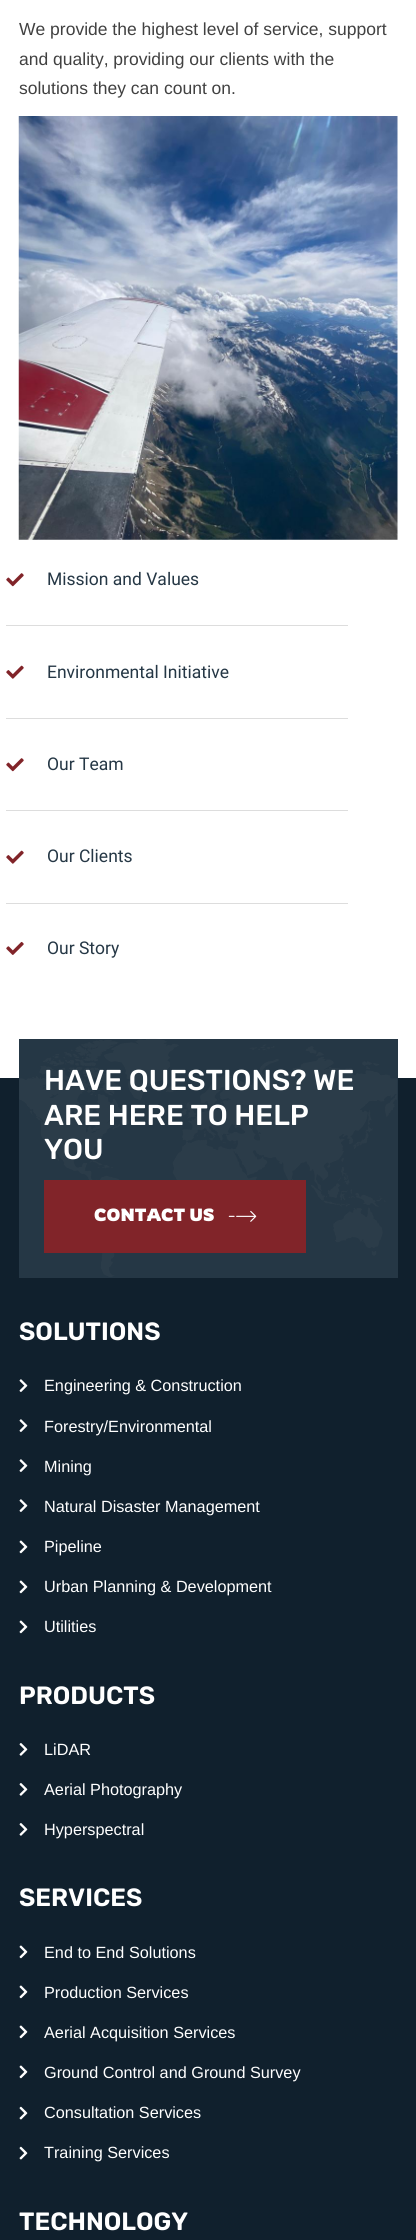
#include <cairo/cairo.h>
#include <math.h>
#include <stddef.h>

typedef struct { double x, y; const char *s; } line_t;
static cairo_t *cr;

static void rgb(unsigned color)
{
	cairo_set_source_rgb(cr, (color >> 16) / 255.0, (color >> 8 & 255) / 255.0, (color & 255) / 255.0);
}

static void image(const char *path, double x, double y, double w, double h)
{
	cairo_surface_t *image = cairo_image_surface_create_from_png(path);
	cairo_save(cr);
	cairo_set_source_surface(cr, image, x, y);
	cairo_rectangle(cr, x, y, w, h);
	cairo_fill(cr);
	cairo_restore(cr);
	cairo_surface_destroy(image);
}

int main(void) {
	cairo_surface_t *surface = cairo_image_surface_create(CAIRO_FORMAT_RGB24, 416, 2240);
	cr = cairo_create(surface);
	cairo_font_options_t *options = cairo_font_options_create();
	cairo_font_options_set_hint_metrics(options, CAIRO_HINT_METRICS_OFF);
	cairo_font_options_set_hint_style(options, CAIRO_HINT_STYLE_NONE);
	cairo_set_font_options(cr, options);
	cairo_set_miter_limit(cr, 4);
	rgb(0xffffff);
	cairo_paint(cr);
	image("img/1.png", 18, 116, 380, 424);
	image("img/2.png", 6, 573, 18, 14);
	rgb(0xdddddd);
	cairo_rectangle(cr, 6, 625, 342, 1);
	cairo_fill(cr);
	image("img/3.png", 6, 665, 18, 14);
	cairo_rectangle(cr, 6, 718, 342, 1);
	cairo_fill(cr);
	image("img/2.png", 6, 758, 18, 14);
	cairo_rectangle(cr, 6, 810, 342, 1);
	cairo_fill(cr);
	image("img/3.png", 6, 850, 18, 14);
	cairo_rectangle(cr, 6, 903, 342, 1);
	cairo_fill(cr);
	image("img/4.png", 6, 941, 18, 14);
	rgb(0x10202d);
	cairo_rectangle(cr, 0, 1078, 416, 1162);
	cairo_fill(cr);
	rgb(0x253745);
	cairo_rectangle(cr, 19, 1039, 379, 239);
	cairo_fill(cr);
	image("img/5.png", 19, 1038, 378, 239);
	rgb(0x812429);
	cairo_rectangle(cr, 44, 1180, 262, 73);
	cairo_fill(cr);
	image("img/6.png", 228, 1210, 29, 12);
	image("img/7.png", 19, 1379, 9, 13);
	image("img/7.png", 19, 1419, 9, 13);
	image("img/7.png", 19, 1459, 9, 13);
	image("img/7.png", 19, 1499, 9, 13);
	image("img/8.png", 19, 1540, 9, 14);
	image("img/8.png", 19, 1580, 9, 14);
	image("img/8.png", 19, 1620, 9, 14);
	image("img/9.png", 19, 1743, 9, 13);
	image("img/9.png", 19, 1783, 9, 13);
	image("img/9.png", 19, 1823, 9, 13);
	image("img/8.png", 19, 1945, 9, 14);
	image("img/8.png", 19, 1985, 9, 14);
	image("img/8.png", 19, 2025, 9, 14);
	image("img/8.png", 19, 2065, 9, 14);
	image("img/10.png", 19, 2106, 9, 14);
	image("img/10.png", 19, 2146, 9, 14);
	cairo_select_font_face(cr, "Liberation Sans", CAIRO_FONT_SLANT_NORMAL, CAIRO_FONT_WEIGHT_NORMAL);
	cairo_set_font_size(cr, 17.5);
	rgb(0x414141);
	{
		static const line_t items[] = {
			{19, 35, "We provide the highest level of service, support"},
			{19, 65, "and quality, providing our clients with the"},
			{19, 94, "solutions they can count on."},
		};
		for (size_t i = 0; i < sizeof items / sizeof *items; i++) {
			cairo_move_to(cr, items[i].x, items[i].y);
			cairo_show_text(cr, items[i].s);
		}
	}
	cairo_select_font_face(cr, "Roboto", CAIRO_FONT_SLANT_NORMAL, CAIRO_FONT_WEIGHT_NORMAL);
	rgb(0x253745);
	{
		static const line_t items[] = {
			{47, 585, "Mission and Values"},
			{47, 678, "Environmental Initiative"},
			{47, 770, "Our Team"},
			{47, 862, "Our Clients"},
			{47, 954, "Our Story"},
		};
		for (size_t i = 0; i < sizeof items / sizeof *items; i++) {
			cairo_move_to(cr, items[i].x, items[i].y);
			cairo_show_text(cr, items[i].s);
		}
	}
	cairo_select_font_face(cr, "Rubik Medium", CAIRO_FONT_SLANT_NORMAL, CAIRO_FONT_WEIGHT_NORMAL);
	cairo_set_font_size(cr, 28.75);
	rgb(0xffffff);
	{
		static const line_t items[] = {
			{44, 1090, "HAVE QUESTIONS? WE"},
			{44, 1125, "ARE HERE TO HELP"},
			{44, 1159, "YOU"},
		};
		for (size_t i = 0; i < sizeof items / sizeof *items; i++) {
			cairo_move_to(cr, items[i].x, items[i].y);
			cairo_show_text(cr, items[i].s);
		}
	}
	cairo_select_font_face(cr, "Rowdies", CAIRO_FONT_SLANT_NORMAL, CAIRO_FONT_WEIGHT_BOLD);
	cairo_set_font_size(cr, 17.5);
	cairo_move_to(cr, 94, 1221);
	cairo_show_text(cr, "CONTACT US");
	cairo_select_font_face(cr, "Rubik SemiBold", CAIRO_FONT_SLANT_NORMAL, CAIRO_FONT_WEIGHT_NORMAL);
	cairo_set_font_size(cr, 25);
	cairo_move_to(cr, 19, 1340);
	cairo_show_text(cr, "SOLUTIONS");
	cairo_select_font_face(cr, "Liberation Sans", CAIRO_FONT_SLANT_NORMAL, CAIRO_FONT_WEIGHT_NORMAL);
	cairo_set_font_size(cr, 16.25);
	{
		static const line_t items[] = {
			{44, 1391, "Engineering & Construction"},
			{44, 1432, "Forestry/Environmental"},
			{44, 1472, "Mining"},
			{44, 1512, "Natural Disaster Management"},
			{44, 1552, "Pipeline"},
			{44, 1592, "Urban Planning & Development"},
			{44, 1632, "Utilities"},
		};
		for (size_t i = 0; i < sizeof items / sizeof *items; i++) {
			cairo_move_to(cr, items[i].x, items[i].y);
			cairo_show_text(cr, items[i].s);
		}
	}
	cairo_select_font_face(cr, "Rubik SemiBold", CAIRO_FONT_SLANT_NORMAL, CAIRO_FONT_WEIGHT_NORMAL);
	cairo_set_font_size(cr, 25);
	cairo_move_to(cr, 19, 1704);
	cairo_show_text(cr, "PRODUCTS");
	cairo_select_font_face(cr, "Liberation Sans", CAIRO_FONT_SLANT_NORMAL, CAIRO_FONT_WEIGHT_NORMAL);
	cairo_set_font_size(cr, 16.25);
	{
		static const line_t items[] = {
			{44, 1755, "LiDAR"},
			{44, 1795, "Aerial Photography"},
			{44, 1835, "Hyperspectral"},
		};
		for (size_t i = 0; i < sizeof items / sizeof *items; i++) {
			cairo_move_to(cr, items[i].x, items[i].y);
			cairo_show_text(cr, items[i].s);
		}
	}
	cairo_select_font_face(cr, "Rubik SemiBold", CAIRO_FONT_SLANT_NORMAL, CAIRO_FONT_WEIGHT_NORMAL);
	cairo_set_font_size(cr, 25);
	cairo_move_to(cr, 19, 1906);
	cairo_show_text(cr, "SERVICES");
	cairo_select_font_face(cr, "Liberation Sans", CAIRO_FONT_SLANT_NORMAL, CAIRO_FONT_WEIGHT_NORMAL);
	cairo_set_font_size(cr, 16.25);
	{
		static const line_t items[] = {
			{44, 1958, "End to End Solutions"},
			{44, 1998, "Production Services"},
			{44, 2038, "Aerial Acquisition Services"},
			{44, 2078, "Ground Control and Ground Survey"},
			{44, 2118, "Consultation Services"},
			{44, 2158, "Training Services"},
		};
		for (size_t i = 0; i < sizeof items / sizeof *items; i++) {
			cairo_move_to(cr, items[i].x, items[i].y);
			cairo_show_text(cr, items[i].s);
		}
	}
	cairo_select_font_face(cr, "Rubik SemiBold", CAIRO_FONT_SLANT_NORMAL, CAIRO_FONT_WEIGHT_NORMAL);
	cairo_set_font_size(cr, 25);
	cairo_move_to(cr, 19, 2230);
	cairo_show_text(cr, "TECHNOLOGY");
	cairo_surface_write_to_png(surface, "page.png");
	cairo_font_options_destroy(options);
	cairo_destroy(cr);
	cairo_surface_destroy(surface);
	return 0;
}
